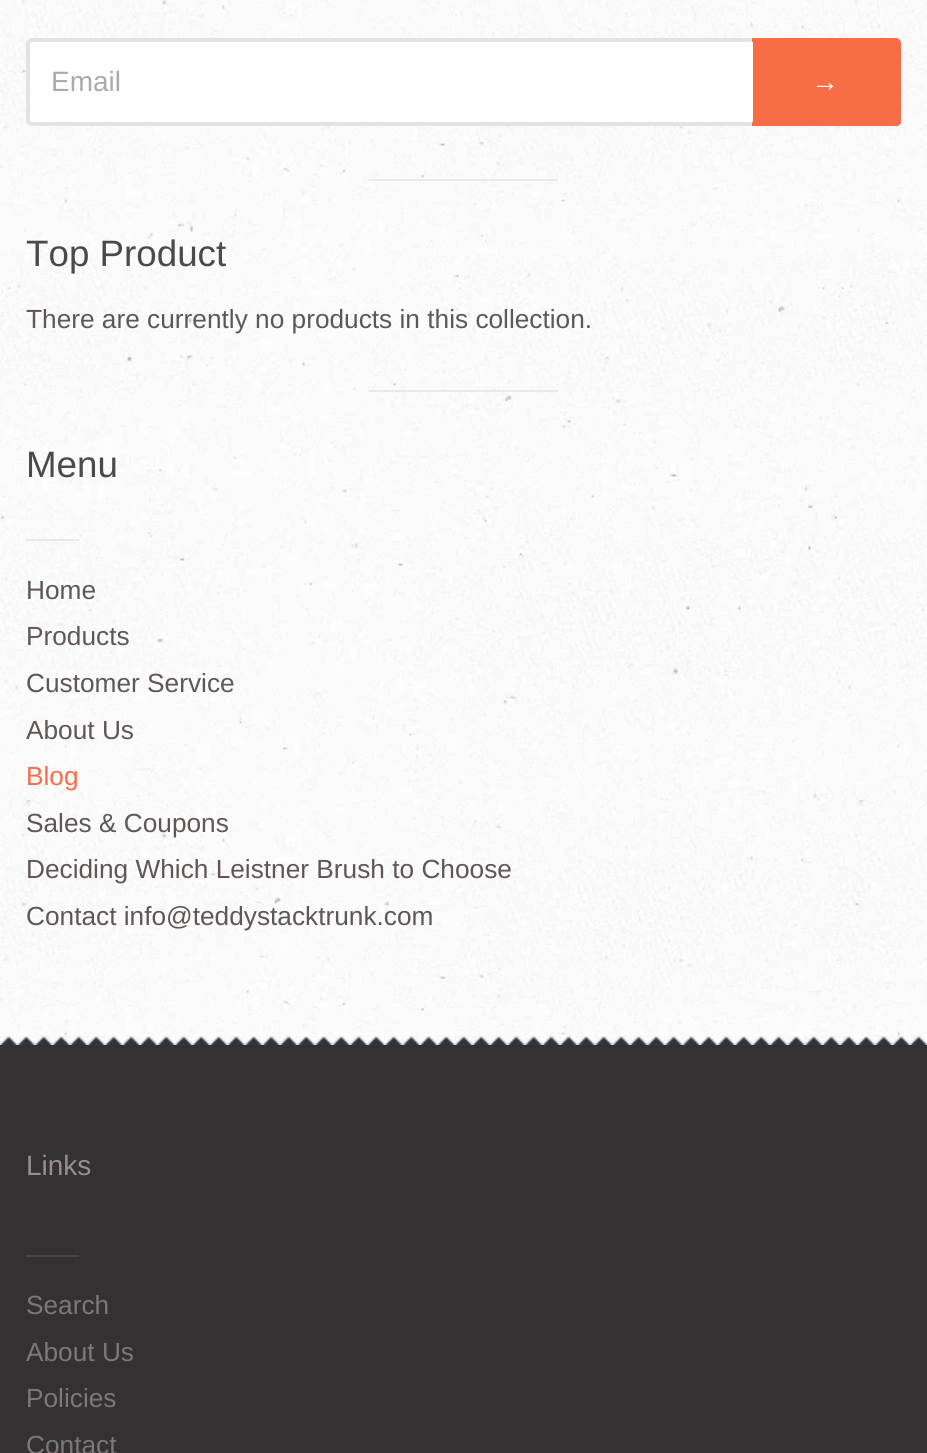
#include <cairo/cairo.h>
#include <math.h>
#include <stddef.h>

typedef struct { double x, y; const char *s; } line_t;
typedef struct { double x, y, w, h; unsigned color; } box_t;
static cairo_t *cr;

static void rgb(unsigned color)
{
	cairo_set_source_rgb(cr, (color >> 16) / 255.0, (color >> 8 & 255) / 255.0, (color & 255) / 255.0);
}

static void image(const char *path, double x, double y, double w, double h)
{
	cairo_surface_t *image = cairo_image_surface_create_from_png(path);
	cairo_save(cr);
	cairo_set_source_surface(cr, image, x, y);
	cairo_rectangle(cr, x, y, w, h);
	cairo_fill(cr);
	cairo_restore(cr);
	cairo_surface_destroy(image);
}

int main(void) {
	cairo_surface_t *surface = cairo_image_surface_create(CAIRO_FORMAT_RGB24, 927, 1453);
	cr = cairo_create(surface);
	cairo_font_options_t *options = cairo_font_options_create();
	cairo_font_options_set_hint_metrics(options, CAIRO_HINT_METRICS_OFF);
	cairo_font_options_set_hint_style(options, CAIRO_HINT_STYLE_NONE);
	cairo_set_font_options(cr, options);
	cairo_set_miter_limit(cr, 4);
	rgb(0xffffff);
	cairo_paint(cr);
	image("img/1.png", 0, 0, 927, 1045);
	image("img/2.png", 0, 1036, 927, 9);
	rgb(0xffffff);
	cairo_new_path(cr);
	cairo_move_to(cr, 31, 39);
	cairo_line_to(cr, 753, 39);
	cairo_line_to(cr, 753, 126);
	cairo_line_to(cr, 31, 126);
	cairo_curve_to(cr, 28, 126, 26, 124, 26, 121);
	cairo_line_to(cr, 26, 44);
	cairo_curve_to(cr, 26, 41, 28, 39, 31, 39);
	cairo_close_path(cr);
	cairo_fill(cr);
	rgb(0xe1e3e4);
	cairo_set_fill_rule(cr, CAIRO_FILL_RULE_EVEN_ODD);
	cairo_new_path(cr);
	cairo_move_to(cr, 32, 38);
	cairo_line_to(cr, 752, 38);
	cairo_line_to(cr, 752, 126);
	cairo_line_to(cr, 32, 126);
	cairo_curve_to(cr, 29, 126, 26, 124, 26, 121);
	cairo_line_to(cr, 26, 44);
	cairo_curve_to(cr, 26, 41, 29, 38, 32, 38);
	cairo_close_path(cr);
	cairo_move_to(cr, 32, 42);
	cairo_line_to(cr, 752, 42);
	cairo_line_to(cr, 752, 122);
	cairo_line_to(cr, 32, 122);
	cairo_curve_to(cr, 31, 122, 30, 122, 30, 121);
	cairo_line_to(cr, 30, 44);
	cairo_curve_to(cr, 30, 43, 31, 42, 32, 42);
	cairo_close_path(cr);
	cairo_fill(cr);
	rgb(0xf66d47);
	cairo_new_path(cr);
	cairo_move_to(cr, 753, 39);
	cairo_line_to(cr, 896, 39);
	cairo_curve_to(cr, 899, 39, 901, 41, 901, 44);
	cairo_line_to(cr, 901, 121);
	cairo_curve_to(cr, 901, 124, 899, 126, 896, 126);
	cairo_line_to(cr, 753, 126);
	cairo_close_path(cr);
	cairo_fill(cr);
	cairo_new_path(cr);
	cairo_move_to(cr, 752, 38);
	cairo_line_to(cr, 896, 38);
	cairo_curve_to(cr, 899, 38, 901, 41, 901, 44);
	cairo_line_to(cr, 901, 121);
	cairo_curve_to(cr, 901, 124, 899, 126, 896, 126);
	cairo_line_to(cr, 752, 126);
	cairo_close_path(cr);
	cairo_move_to(cr, 752, 42);
	cairo_line_to(cr, 896, 42);
	cairo_curve_to(cr, 897, 42, 898, 43, 898, 44);
	cairo_line_to(cr, 898, 121);
	cairo_curve_to(cr, 898, 122, 897, 122, 896, 122);
	cairo_line_to(cr, 752, 122);
	cairo_close_path(cr);
	cairo_fill(cr);
	{
		static const box_t items[] = {
			{369, 179, 189, 2, 0xeae8e8},
			{369, 390, 189, 2, 0xeae8e8},
			{26, 539, 53, 2, 0xeae8e8},
			{0, 1045, 927, 408, 0x333132},
			{26, 1255, 53, 2, 0x494341},
		};
		for (size_t i = 0; i < sizeof items / sizeof *items; i++) {
			rgb(items[i].color);
			cairo_rectangle(cr, items[i].x, items[i].y, items[i].w, items[i].h);
			cairo_fill(cr);
		}
	}
	cairo_select_font_face(cr, "Liberation Sans", CAIRO_FONT_SLANT_NORMAL, CAIRO_FONT_WEIGHT_NORMAL);
	cairo_set_font_size(cr, 28);
	rgb(0xa9aaaa);
	cairo_move_to(cr, 51, 91);
	cairo_show_text(cr, "Email");
	rgb(0xffffff);
	cairo_move_to(cr, 811, 91);
	cairo_show_text(cr, "→");
	cairo_set_font_size(cr, 36.75);
	rgb(0x4e4949);
	cairo_move_to(cr, 26, 266);
	cairo_show_text(cr, "Top Product");
	cairo_set_font_size(cr, 26.25);
	rgb(0x5f5755);
	cairo_move_to(cr, 26, 328);
	cairo_show_text(cr, "There are currently no products in this collection.");
	cairo_set_font_size(cr, 36.75);
	rgb(0x4e4949);
	cairo_move_to(cr, 26, 477);
	cairo_show_text(cr, "Menu");
	cairo_set_font_size(cr, 26.25);
	rgb(0x5f5755);
	{
		static const line_t items[] = {
			{26, 599, "Home"},
			{26, 645, "Products"},
			{26, 692, "Customer Service"},
			{26, 739, "About Us"},
		};
		for (size_t i = 0; i < sizeof items / sizeof *items; i++) {
			cairo_move_to(cr, items[i].x, items[i].y);
			cairo_show_text(cr, items[i].s);
		}
	}
	rgb(0xf66d47);
	cairo_move_to(cr, 26, 785);
	cairo_show_text(cr, "Blog");
	rgb(0x5f5755);
	{
		static const line_t items[] = {
			{26, 832, "Sales & Coupons"},
			{26, 878, "Deciding Which Leistner Brush to Choose"},
			{26, 925, "Contact info@teddystacktrunk.com"},
		};
		for (size_t i = 0; i < sizeof items / sizeof *items; i++) {
			cairo_move_to(cr, items[i].x, items[i].y);
			cairo_show_text(cr, items[i].s);
		}
	}
	cairo_set_font_size(cr, 28);
	rgb(0x968f8d);
	cairo_move_to(cr, 26, 1175);
	cairo_show_text(cr, "Links");
	cairo_set_font_size(cr, 26.25);
	rgb(0x7e7777);
	{
		static const line_t items[] = {
			{26, 1314, "Search"},
			{26, 1361, "About Us"},
			{26, 1407, "Policies"},
			{26, 1454, "Contact"},
		};
		for (size_t i = 0; i < sizeof items / sizeof *items; i++) {
			cairo_move_to(cr, items[i].x, items[i].y);
			cairo_show_text(cr, items[i].s);
		}
	}
	cairo_surface_write_to_png(surface, "page.png");
	cairo_font_options_destroy(options);
	cairo_destroy(cr);
	cairo_surface_destroy(surface);
	return 0;
}
